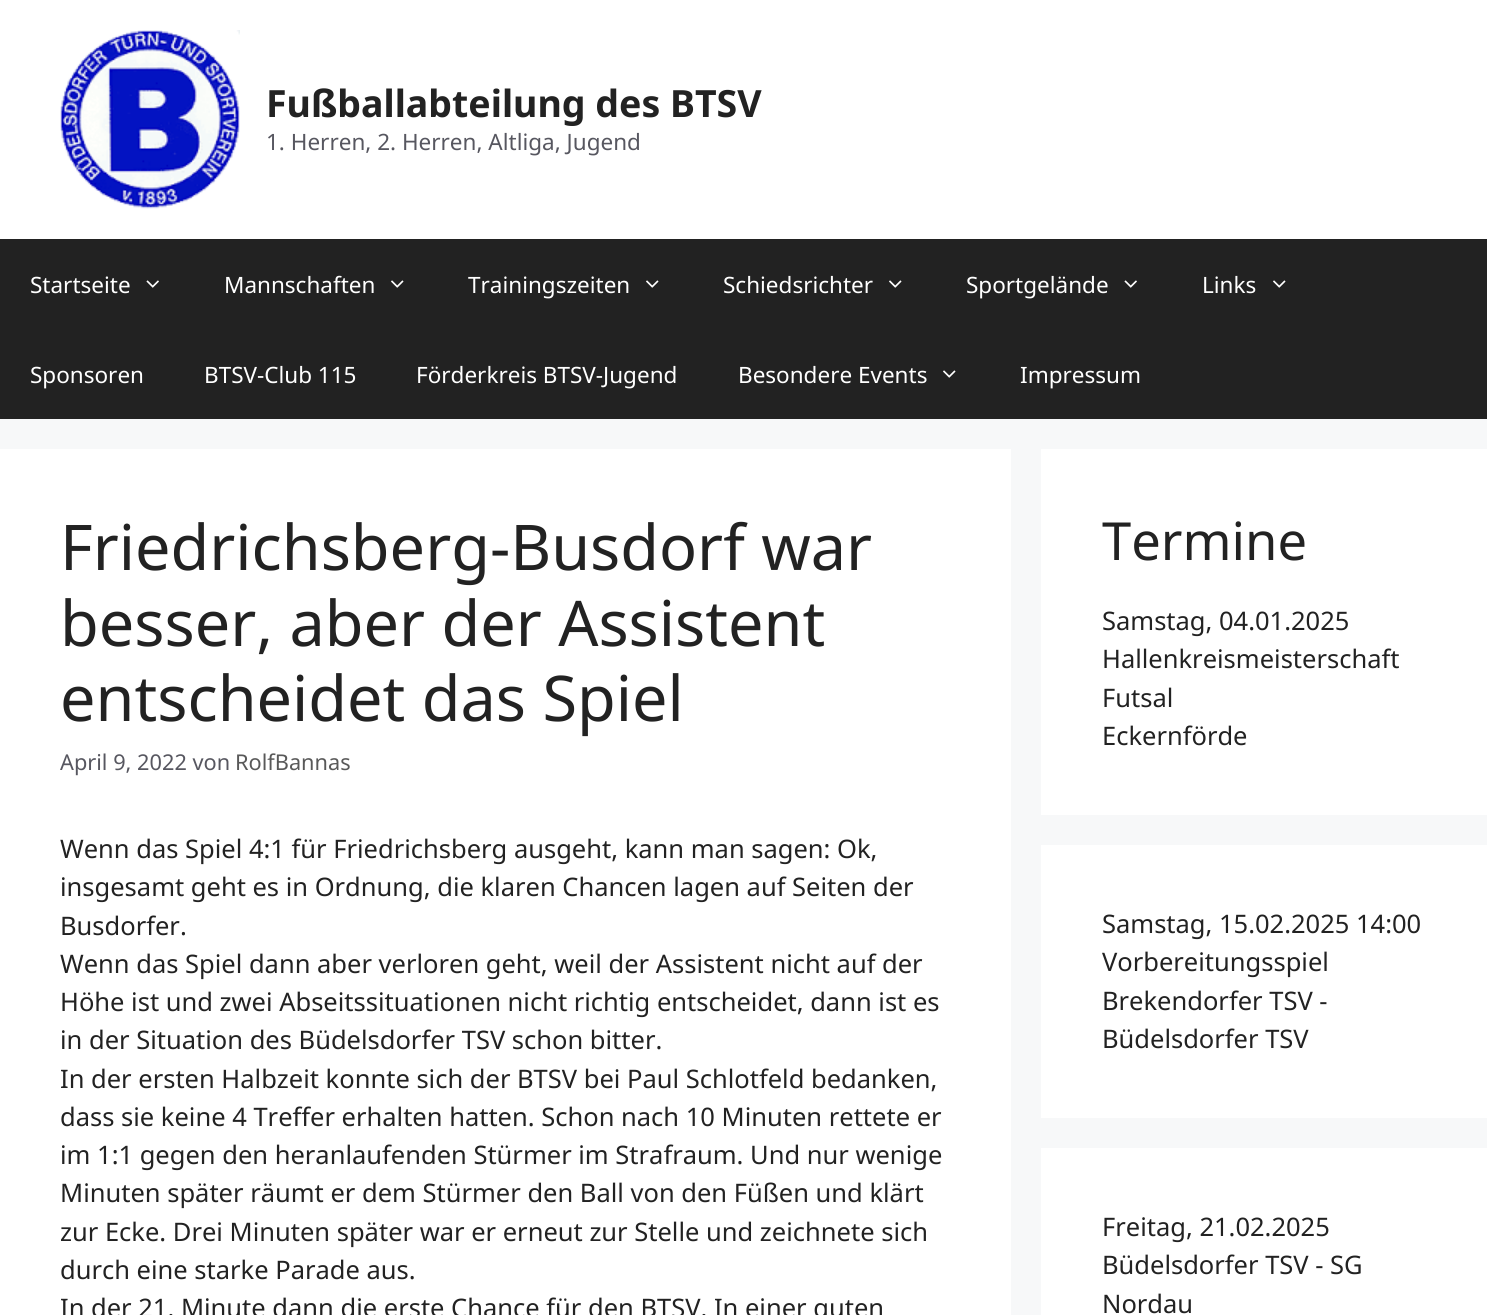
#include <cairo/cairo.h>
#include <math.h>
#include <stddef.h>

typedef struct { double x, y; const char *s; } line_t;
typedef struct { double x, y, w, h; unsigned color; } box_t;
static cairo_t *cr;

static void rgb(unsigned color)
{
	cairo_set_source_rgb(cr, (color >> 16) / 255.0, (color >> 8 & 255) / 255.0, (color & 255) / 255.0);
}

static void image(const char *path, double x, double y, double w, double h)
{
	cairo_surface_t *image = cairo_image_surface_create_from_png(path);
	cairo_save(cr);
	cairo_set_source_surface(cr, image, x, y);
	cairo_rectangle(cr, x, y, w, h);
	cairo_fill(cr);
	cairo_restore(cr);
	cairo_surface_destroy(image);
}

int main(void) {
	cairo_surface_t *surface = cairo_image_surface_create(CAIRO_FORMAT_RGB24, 1487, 1315);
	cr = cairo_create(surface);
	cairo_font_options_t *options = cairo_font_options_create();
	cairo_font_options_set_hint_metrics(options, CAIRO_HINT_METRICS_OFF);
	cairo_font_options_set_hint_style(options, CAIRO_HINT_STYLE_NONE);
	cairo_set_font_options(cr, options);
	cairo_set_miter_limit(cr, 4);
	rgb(0xf7f8f9);
	cairo_paint(cr);
	rgb(0xffffff);
	cairo_rectangle(cr, 0, 0, 1487, 239);
	cairo_fill(cr);
	image("img/1.png", 60, 30, 180, 179);
	rgb(0x222222);
	cairo_rectangle(cr, 0, 239, 1487, 180);
	cairo_fill(cr);
	image("img/2.png", 146, 280, 13, 8);
	image("img/3.png", 391, 280, 13, 8);
	image("img/3.png", 646, 280, 13, 8);
	image("img/3.png", 889, 280, 13, 8);
	image("img/2.png", 1124, 280, 13, 8);
	image("img/3.png", 1273, 280, 13, 8);
	image("img/3.png", 943, 370, 13, 8);
	{
		static const box_t items[] = {
			{0, 449, 1011, 866, 0xffffff},
			{1041, 449, 446, 366, 0xffffff},
			{1041, 845, 446, 273, 0xffffff},
			{1041, 1148, 446, 167, 0xffffff},
		};
		for (size_t i = 0; i < sizeof items / sizeof *items; i++) {
			rgb(items[i].color);
			cairo_rectangle(cr, items[i].x, items[i].y, items[i].w, items[i].h);
			cairo_fill(cr);
		}
	}
	cairo_select_font_face(cr, "Noto Sans", CAIRO_FONT_SLANT_NORMAL, CAIRO_FONT_WEIGHT_BOLD);
	cairo_set_font_size(cr, 37.5);
	rgb(0x222222);
	cairo_move_to(cr, 266, 117);
	cairo_show_text(cr, "Fußballabteilung des BTSV");
	cairo_select_font_face(cr, "Noto Sans", CAIRO_FONT_SLANT_NORMAL, CAIRO_FONT_WEIGHT_NORMAL);
	cairo_set_font_size(cr, 22.5);
	rgb(0x575760);
	cairo_move_to(cr, 266, 150);
	cairo_show_text(cr, "1. Herren, 2. Herren, Altliga, Jugend");
	rgb(0xffffff);
	{
		static const line_t items[] = {
			{30, 293, "Startseite"},
			{224, 293, "Mannschaften"},
			{468, 293, "Trainingszeiten"},
			{723, 293, "Schiedsrichter"},
			{966, 293, "Sportgelände"},
			{1202, 293, "Links"},
			{30, 383, "Sponsoren"},
			{204, 383, "BTSV-Club 115"},
			{416, 383, "Förderkreis BTSV-Jugend"},
			{738, 383, "Besondere Events"},
			{1020, 383, "Impressum"},
		};
		for (size_t i = 0; i < sizeof items / sizeof *items; i++) {
			cairo_move_to(cr, items[i].x, items[i].y);
			cairo_show_text(cr, items[i].s);
		}
	}
	cairo_set_font_size(cr, 63);
	rgb(0x222222);
	{
		static const line_t items[] = {
			{60, 570, "Friedrichsberg-Busdorf war"},
			{60, 646, "besser, aber der Assistent"},
			{60, 721, "entscheidet das Spiel"},
		};
		for (size_t i = 0; i < sizeof items / sizeof *items; i++) {
			cairo_move_to(cr, items[i].x, items[i].y);
			cairo_show_text(cr, items[i].s);
		}
	}
	cairo_set_font_size(cr, 21.75);
	rgb(0x575760);
	cairo_move_to(cr, 60, 770);
	cairo_show_text(cr, "April 9, 2022 von");
	rgb(0x595959);
	cairo_move_to(cr, 235, 770);
	cairo_show_text(cr, "RolfBannas");
	cairo_set_font_size(cr, 25.5);
	rgb(0x222222);
	{
		static const line_t items[] = {
			{60, 858, "Wenn das Spiel 4:1 für Friedrichsberg ausgeht, kann man sagen: Ok,"},
			{60, 896, "insgesamt geht es in Ordnung, die klaren Chancen lagen auf Seiten der"},
			{60, 935, "Busdorfer."},
			{60, 973, "Wenn das Spiel dann aber verloren geht, weil der Assistent nicht auf der"},
			{60, 1011, "Höhe ist und zwei Abseitssituationen nicht richtig entscheidet, dann ist es"},
			{60, 1049, "in der Situation des Büdelsdorfer TSV schon bitter."},
			{60, 1088, "In der ersten Halbzeit konnte sich der BTSV bei Paul Schlotfeld bedanken,"},
			{60, 1126, "dass sie keine 4 Treffer erhalten hatten. Schon nach 10 Minuten rettete er"},
			{60, 1164, "im 1:1 gegen den heranlaufenden Stürmer im Strafraum. Und nur wenige"},
			{60, 1202, "Minuten später räumt er dem Stürmer den Ball von den Füßen und klärt"},
			{60, 1241, "zur Ecke. Drei Minuten später war er erneut zur Stelle und zeichnete sich"},
			{60, 1279, "durch eine starke Parade aus."},
			{60, 1317, "In der 21. Minute dann die erste Chance für den BTSV. In einer guten"},
		};
		for (size_t i = 0; i < sizeof items / sizeof *items; i++) {
			cairo_move_to(cr, items[i].x, items[i].y);
			cairo_show_text(cr, items[i].s);
		}
	}
	cairo_set_font_size(cr, 52.5);
	cairo_move_to(cr, 1102, 560);
	cairo_show_text(cr, "Termine");
	cairo_set_font_size(cr, 25.5);
	{
		static const line_t items[] = {
			{1102, 630, "Samstag, 04.01.2025"},
			{1102, 668, "Hallenkreismeisterschaft"},
			{1102, 707, "Futsal"},
			{1102, 745, "Eckernförde"},
			{1102, 933, "Samstag, 15.02.2025 14:00"},
			{1102, 971, "Vorbereitungsspiel"},
			{1102, 1010, "Brekendorfer TSV -"},
			{1102, 1048, "Büdelsdorfer TSV"},
			{1102, 1236, "Freitag, 21.02.2025"},
			{1102, 1274, "Büdelsdorfer TSV - SG"},
			{1102, 1313, "Nordau"},
		};
		for (size_t i = 0; i < sizeof items / sizeof *items; i++) {
			cairo_move_to(cr, items[i].x, items[i].y);
			cairo_show_text(cr, items[i].s);
		}
	}
	cairo_surface_write_to_png(surface, "page.png");
	cairo_font_options_destroy(options);
	cairo_destroy(cr);
	cairo_surface_destroy(surface);
	return 0;
}
